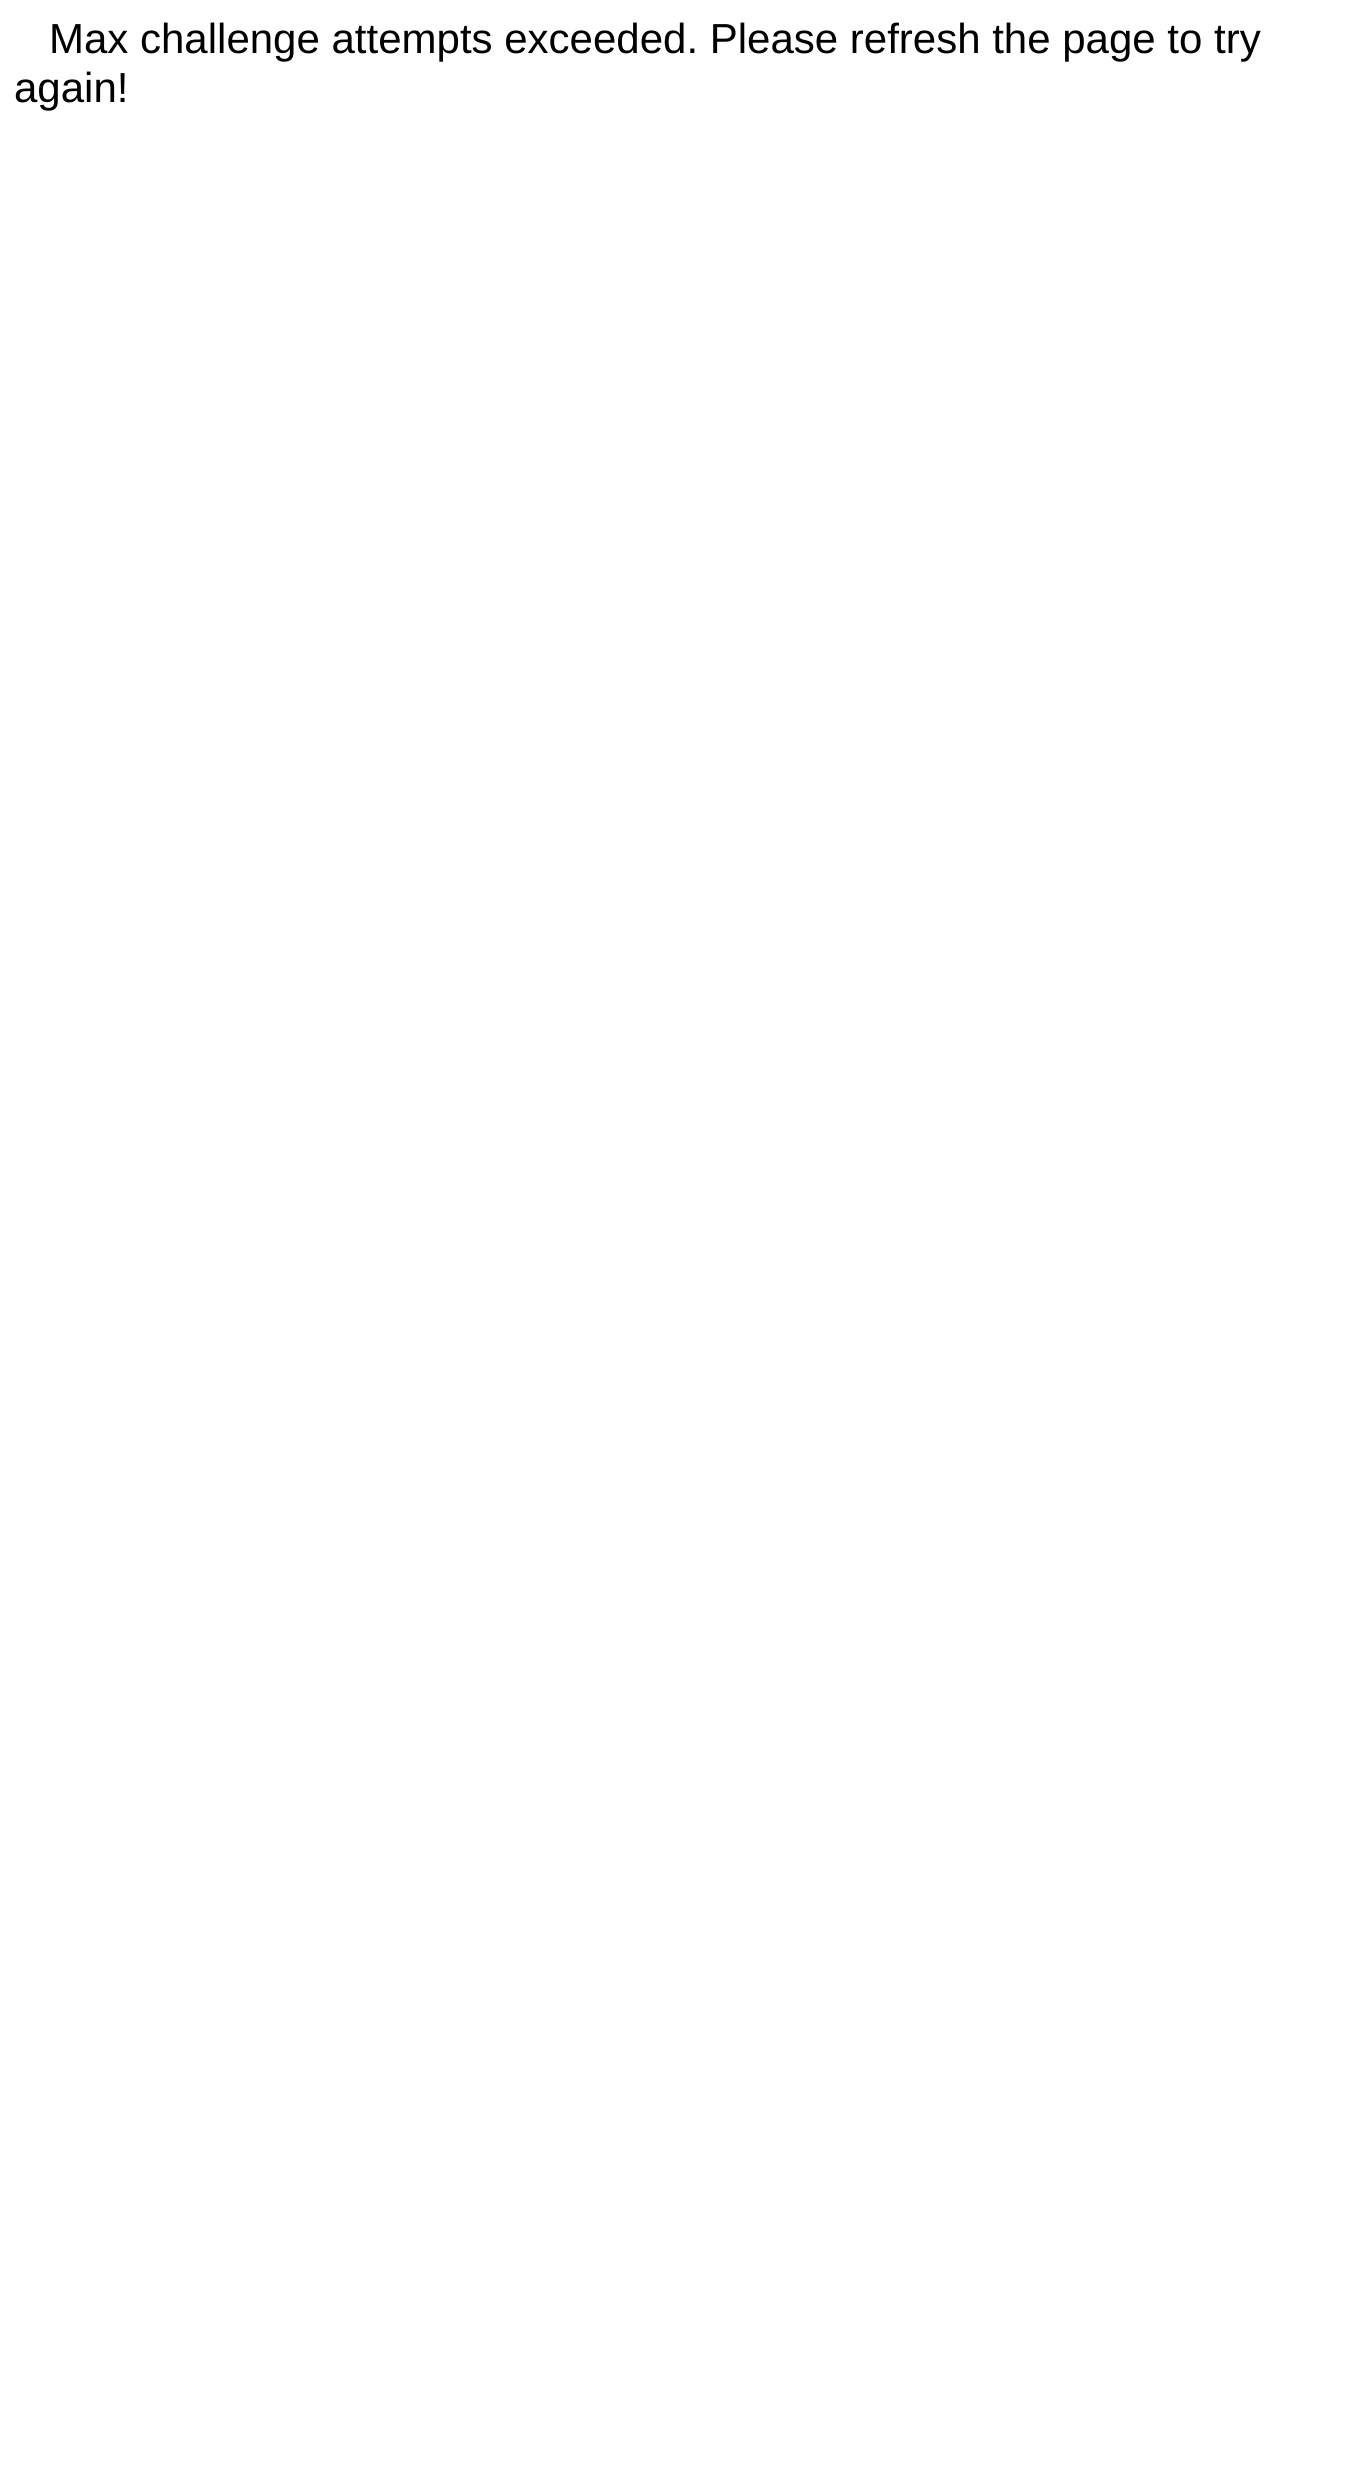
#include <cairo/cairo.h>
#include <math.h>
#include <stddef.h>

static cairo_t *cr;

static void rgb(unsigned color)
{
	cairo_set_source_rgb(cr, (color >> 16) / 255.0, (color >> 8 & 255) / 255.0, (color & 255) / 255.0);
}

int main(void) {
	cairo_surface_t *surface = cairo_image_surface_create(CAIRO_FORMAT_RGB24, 1358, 2465);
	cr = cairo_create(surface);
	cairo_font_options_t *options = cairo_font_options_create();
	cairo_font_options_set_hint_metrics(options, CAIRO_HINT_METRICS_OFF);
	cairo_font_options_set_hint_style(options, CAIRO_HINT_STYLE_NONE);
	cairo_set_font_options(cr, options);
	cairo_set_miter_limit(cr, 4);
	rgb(0xffffff);
	cairo_paint(cr);
	cairo_select_font_face(cr, "Liberation Sans", CAIRO_FONT_SLANT_NORMAL, CAIRO_FONT_WEIGHT_NORMAL);
	cairo_set_font_size(cr, 42);
	rgb(0x000000);
	cairo_move_to(cr, 49, 53);
	cairo_show_text(cr, "Max challenge attempts exceeded. Please refresh the page to try");
	cairo_move_to(cr, 14, 102);
	cairo_show_text(cr, "again!");
	cairo_surface_write_to_png(surface, "page.png");
	cairo_font_options_destroy(options);
	cairo_destroy(cr);
	cairo_surface_destroy(surface);
	return 0;
}
